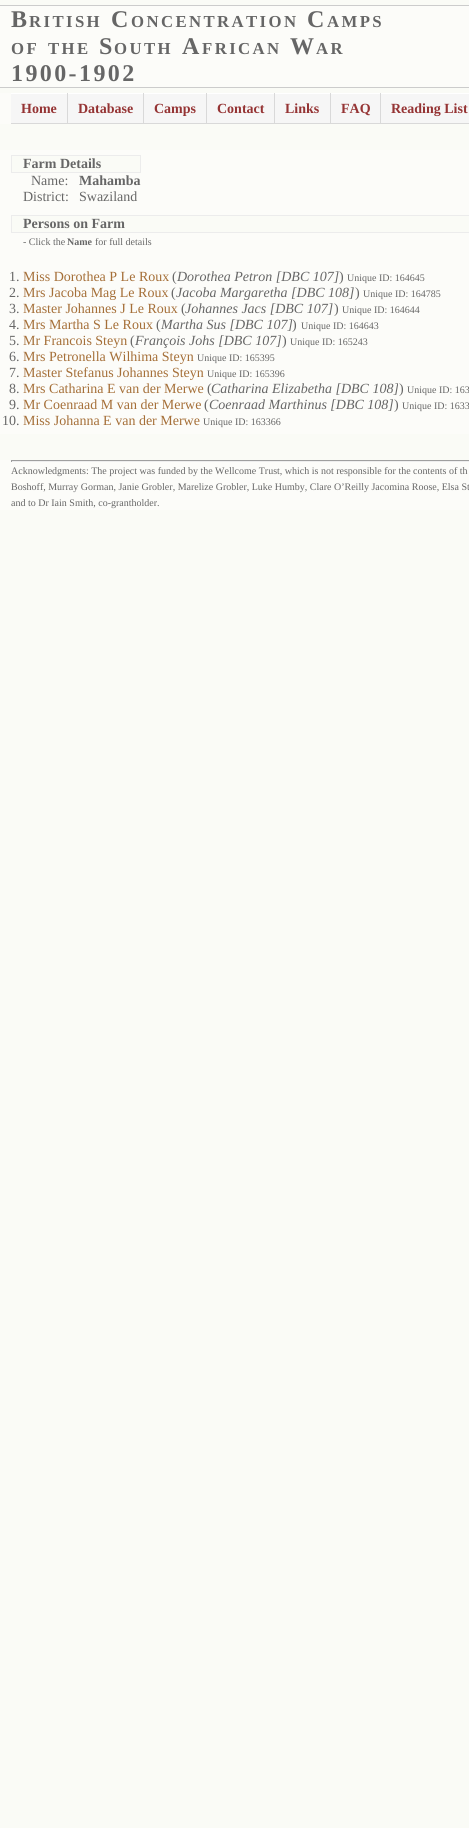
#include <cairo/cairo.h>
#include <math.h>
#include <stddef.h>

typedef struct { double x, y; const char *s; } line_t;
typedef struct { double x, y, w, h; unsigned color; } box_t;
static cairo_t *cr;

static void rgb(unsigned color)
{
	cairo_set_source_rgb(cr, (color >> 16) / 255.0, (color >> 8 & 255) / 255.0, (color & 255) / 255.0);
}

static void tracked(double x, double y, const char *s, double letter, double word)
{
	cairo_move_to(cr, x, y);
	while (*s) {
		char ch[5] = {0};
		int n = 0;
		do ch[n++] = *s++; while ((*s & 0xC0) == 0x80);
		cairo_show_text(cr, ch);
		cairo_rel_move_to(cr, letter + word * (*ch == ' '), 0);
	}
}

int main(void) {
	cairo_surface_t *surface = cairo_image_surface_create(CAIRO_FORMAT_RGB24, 469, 1828);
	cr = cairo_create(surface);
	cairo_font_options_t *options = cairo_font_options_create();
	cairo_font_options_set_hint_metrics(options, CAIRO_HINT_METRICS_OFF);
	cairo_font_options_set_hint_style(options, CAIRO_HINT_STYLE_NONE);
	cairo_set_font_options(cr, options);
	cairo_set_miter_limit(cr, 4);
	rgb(0xfafbf6);
	cairo_paint(cr);
	{
		static const box_t items[] = {
			{0, 6, 469, 81, 0xfcfcf9},
			{0, 5, 469, 1, 0xcccccc},
			{0, 87, 469, 1, 0xcccccc},
			{0, 93, 11, 31, 0xfcfcf9},
			{11, 94, 56, 29, 0xf6f6f6},
			{11, 93, 458, 1, 0xffffff},
			{67, 93, 1, 31, 0xd9d9d9},
			{11, 123, 57, 1, 0xd9d9d9},
			{68, 94, 75, 29, 0xf6f6f6},
			{143, 93, 1, 31, 0xd9d9d9},
			{68, 123, 76, 1, 0xd9d9d9},
			{144, 94, 62, 29, 0xf6f6f6},
			{206, 93, 1, 31, 0xd9d9d9},
			{144, 123, 63, 1, 0xd9d9d9},
			{207, 94, 67, 29, 0xf6f6f6},
			{274, 93, 1, 31, 0xd9d9d9},
			{207, 123, 68, 1, 0xd9d9d9},
			{275, 94, 55, 29, 0xf6f6f6},
			{330, 93, 1, 31, 0xd9d9d9},
			{275, 123, 56, 1, 0xd9d9d9},
			{331, 94, 49, 29, 0xf6f6f6},
			{380, 93, 1, 31, 0xd9d9d9},
			{331, 123, 138, 1, 0xd9d9d9},
			{381, 94, 88, 29, 0xf6f6f6},
			{0, 150, 469, 284, 0xfcfcf9},
			{12, 156, 128, 16, 0xfafbf6},
			{11, 155, 130, 1, 0xececec},
			{140, 155, 1, 18, 0xececec},
			{11, 172, 130, 1, 0xececec},
			{11, 155, 1, 18, 0xececec},
			{12, 216, 457, 16, 0xfafbf6},
			{11, 215, 458, 1, 0xececec},
			{11, 232, 458, 1, 0xececec},
			{11, 215, 1, 18, 0xececec},
			{0, 460, 469, 50, 0xfcfcf9},
			{11, 460, 458, 1, 0x9f9f9f},
			{11, 461, 458, 1, 0xeeeeee},
			{11, 460, 1, 2, 0x9f9f9f},
		};
		for (size_t i = 0; i < sizeof items / sizeof *items; i++) {
			rgb(items[i].color);
			cairo_rectangle(cr, items[i].x, items[i].y, items[i].w, items[i].h);
			cairo_fill(cr);
		}
	}
	cairo_select_font_face(cr, "Liberation Serif", CAIRO_FONT_SLANT_NORMAL, CAIRO_FONT_WEIGHT_BOLD);
	cairo_set_font_size(cr, 24);
	rgb(0x666666);
	tracked(11, 27, "B", 2.4, 0);
	cairo_set_font_size(cr, 16.75);
	tracked(29, 27, "RITISH", 2.4, 0);
	cairo_set_font_size(cr, 24);
	tracked(111, 27, "C", 2.4, 0);
	cairo_set_font_size(cr, 16.75);
	tracked(131, 27, "ONCENTRATION", 2.4, 0);
	cairo_set_font_size(cr, 24);
	tracked(307, 27, "C", 2.4, 0);
	cairo_set_font_size(cr, 16.75);
	{
		static const line_t items[] = {
			{327, 27, "AMPS"},
			{11, 54, "OF"},
			{48, 54, "THE"},
		};
		for (size_t i = 0; i < sizeof items / sizeof *items; i++) {
			tracked(items[i].x, items[i].y, items[i].s, 2.4, 0);
		}
	}
	cairo_set_font_size(cr, 24);
	tracked(99, 54, "S", 2.4, 0);
	cairo_set_font_size(cr, 16.75);
	tracked(114, 54, "OUTH", 2.4, 0);
	cairo_set_font_size(cr, 24);
	tracked(182, 54, "A", 2.4, 0);
	cairo_set_font_size(cr, 16.75);
	tracked(202, 54, "FRICAN", 2.4, 0);
	cairo_set_font_size(cr, 24);
	tracked(290, 54, "W", 2.4, 0);
	cairo_set_font_size(cr, 16.75);
	tracked(316, 54, "AR", 2.4, 0);
	cairo_set_font_size(cr, 24);
	tracked(11, 81, "1900-1902", 2.4, 0);
	cairo_set_font_size(cr, 14);
	rgb(0x953434);
	{
		static const line_t items[] = {
			{21, 113, "Home"},
			{78, 113, "Database"},
			{154, 113, "Camps"},
			{217, 113, "Contact"},
			{285, 113, "Links"},
			{341, 113, "FAQ"},
			{391, 113, "Reading List"},
		};
		for (size_t i = 0; i < sizeof items / sizeof *items; i++) {
			cairo_move_to(cr, items[i].x, items[i].y);
			cairo_show_text(cr, items[i].s);
		}
	}
	rgb(0x666666);
	cairo_move_to(cr, 23, 168);
	cairo_show_text(cr, "Farm Details");
	cairo_select_font_face(cr, "Liberation Serif", CAIRO_FONT_SLANT_NORMAL, CAIRO_FONT_WEIGHT_NORMAL);
	cairo_move_to(cr, 31, 185);
	cairo_show_text(cr, "Name:");
	cairo_select_font_face(cr, "Liberation Serif", CAIRO_FONT_SLANT_NORMAL, CAIRO_FONT_WEIGHT_BOLD);
	cairo_move_to(cr, 79, 185);
	cairo_show_text(cr, "Mahamba");
	cairo_select_font_face(cr, "Liberation Serif", CAIRO_FONT_SLANT_NORMAL, CAIRO_FONT_WEIGHT_NORMAL);
	cairo_move_to(cr, 23, 201);
	cairo_show_text(cr, "District:");
	cairo_move_to(cr, 79, 201);
	cairo_show_text(cr, "Swaziland");
	cairo_select_font_face(cr, "Liberation Serif", CAIRO_FONT_SLANT_NORMAL, CAIRO_FONT_WEIGHT_BOLD);
	cairo_move_to(cr, 23, 228);
	cairo_show_text(cr, "Persons on Farm");
	cairo_select_font_face(cr, "Liberation Serif", CAIRO_FONT_SLANT_NORMAL, CAIRO_FONT_WEIGHT_NORMAL);
	cairo_set_font_size(cr, 10);
	cairo_move_to(cr, 23, 245);
	cairo_show_text(cr, "- Click the");
	cairo_select_font_face(cr, "Liberation Serif", CAIRO_FONT_SLANT_NORMAL, CAIRO_FONT_WEIGHT_BOLD);
	cairo_move_to(cr, 67, 245);
	cairo_show_text(cr, "Name");
	cairo_select_font_face(cr, "Liberation Serif", CAIRO_FONT_SLANT_NORMAL, CAIRO_FONT_WEIGHT_NORMAL);
	cairo_move_to(cr, 95, 245);
	cairo_show_text(cr, "for full details");
	cairo_set_font_size(cr, 14);
	cairo_move_to(cr, 9, 281);
	cairo_show_text(cr, "1.");
	rgb(0xa56f38);
	cairo_move_to(cr, 23, 281);
	cairo_show_text(cr, "Miss Dorothea P Le Roux");
	rgb(0x666666);
	cairo_move_to(cr, 172, 281);
	cairo_show_text(cr, "(");
	cairo_select_font_face(cr, "Liberation Serif", CAIRO_FONT_SLANT_ITALIC, CAIRO_FONT_WEIGHT_NORMAL);
	cairo_move_to(cr, 177, 281);
	cairo_show_text(cr, "Dorothea Petron [DBC 107]");
	cairo_select_font_face(cr, "Liberation Serif", CAIRO_FONT_SLANT_NORMAL, CAIRO_FONT_WEIGHT_NORMAL);
	cairo_move_to(cr, 339, 281);
	cairo_show_text(cr, ")");
	cairo_set_font_size(cr, 10);
	cairo_move_to(cr, 347, 281);
	cairo_show_text(cr, "Unique ID: 164645");
	cairo_set_font_size(cr, 14);
	cairo_move_to(cr, 9, 297);
	cairo_show_text(cr, "2.");
	rgb(0xa56f38);
	cairo_move_to(cr, 23, 297);
	cairo_show_text(cr, "Mrs Jacoba Mag Le Roux");
	rgb(0x666666);
	cairo_move_to(cr, 171, 297);
	cairo_show_text(cr, "(");
	cairo_select_font_face(cr, "Liberation Serif", CAIRO_FONT_SLANT_ITALIC, CAIRO_FONT_WEIGHT_NORMAL);
	cairo_move_to(cr, 176, 297);
	cairo_show_text(cr, "Jacoba Margaretha [DBC 108]");
	cairo_select_font_face(cr, "Liberation Serif", CAIRO_FONT_SLANT_NORMAL, CAIRO_FONT_WEIGHT_NORMAL);
	cairo_move_to(cr, 355, 297);
	cairo_show_text(cr, ")");
	cairo_set_font_size(cr, 10);
	cairo_move_to(cr, 363, 297);
	cairo_show_text(cr, "Unique ID: 164785");
	cairo_set_font_size(cr, 14);
	cairo_move_to(cr, 9, 313);
	cairo_show_text(cr, "3.");
	rgb(0xa56f38);
	cairo_move_to(cr, 23, 313);
	cairo_show_text(cr, "Master Johannes J Le Roux");
	rgb(0x666666);
	cairo_move_to(cr, 181, 313);
	cairo_show_text(cr, "(");
	cairo_select_font_face(cr, "Liberation Serif", CAIRO_FONT_SLANT_ITALIC, CAIRO_FONT_WEIGHT_NORMAL);
	cairo_move_to(cr, 185, 313);
	cairo_show_text(cr, "Johannes Jacs [DBC 107]");
	cairo_select_font_face(cr, "Liberation Serif", CAIRO_FONT_SLANT_NORMAL, CAIRO_FONT_WEIGHT_NORMAL);
	cairo_move_to(cr, 334, 313);
	cairo_show_text(cr, ")");
	cairo_set_font_size(cr, 10);
	cairo_move_to(cr, 342, 313);
	cairo_show_text(cr, "Unique ID: 164644");
	cairo_set_font_size(cr, 14);
	cairo_move_to(cr, 9, 329);
	cairo_show_text(cr, "4.");
	rgb(0xa56f38);
	cairo_move_to(cr, 23, 329);
	cairo_show_text(cr, "Mrs Martha S Le Roux");
	rgb(0x666666);
	cairo_move_to(cr, 156, 329);
	cairo_show_text(cr, "(");
	cairo_select_font_face(cr, "Liberation Serif", CAIRO_FONT_SLANT_ITALIC, CAIRO_FONT_WEIGHT_NORMAL);
	cairo_move_to(cr, 161, 329);
	cairo_show_text(cr, "Martha Sus [DBC 107]");
	cairo_select_font_face(cr, "Liberation Serif", CAIRO_FONT_SLANT_NORMAL, CAIRO_FONT_WEIGHT_NORMAL);
	cairo_move_to(cr, 292, 329);
	cairo_show_text(cr, ")");
	cairo_set_font_size(cr, 10);
	cairo_move_to(cr, 301, 329);
	cairo_show_text(cr, "Unique ID: 164643");
	cairo_set_font_size(cr, 14);
	cairo_move_to(cr, 9, 345);
	cairo_show_text(cr, "5.");
	rgb(0xa56f38);
	cairo_move_to(cr, 23, 345);
	cairo_show_text(cr, "Mr Francois Steyn");
	rgb(0x666666);
	cairo_move_to(cr, 130, 345);
	cairo_show_text(cr, "(");
	cairo_select_font_face(cr, "Liberation Serif", CAIRO_FONT_SLANT_ITALIC, CAIRO_FONT_WEIGHT_NORMAL);
	cairo_move_to(cr, 135, 345);
	cairo_show_text(cr, "François Johs [DBC 107]");
	cairo_select_font_face(cr, "Liberation Serif", CAIRO_FONT_SLANT_NORMAL, CAIRO_FONT_WEIGHT_NORMAL);
	cairo_move_to(cr, 282, 345);
	cairo_show_text(cr, ")");
	cairo_set_font_size(cr, 10);
	cairo_move_to(cr, 290, 345);
	cairo_show_text(cr, "Unique ID: 165243");
	cairo_set_font_size(cr, 14);
	cairo_move_to(cr, 9, 361);
	cairo_show_text(cr, "6.");
	rgb(0xa56f38);
	cairo_move_to(cr, 23, 361);
	cairo_show_text(cr, "Mrs Petronella Wilhima Steyn");
	cairo_set_font_size(cr, 10);
	rgb(0x666666);
	cairo_move_to(cr, 197, 361);
	cairo_show_text(cr, "Unique ID: 165395");
	cairo_set_font_size(cr, 14);
	cairo_move_to(cr, 9, 377);
	cairo_show_text(cr, "7.");
	rgb(0xa56f38);
	cairo_move_to(cr, 23, 377);
	cairo_show_text(cr, "Master Stefanus Johannes Steyn");
	cairo_set_font_size(cr, 10);
	rgb(0x666666);
	cairo_move_to(cr, 207, 377);
	cairo_show_text(cr, "Unique ID: 165396");
	cairo_set_font_size(cr, 14);
	cairo_move_to(cr, 9, 393);
	cairo_show_text(cr, "8.");
	rgb(0xa56f38);
	cairo_move_to(cr, 23, 393);
	cairo_show_text(cr, "Mrs Catharina E van der Merwe");
	rgb(0x666666);
	cairo_move_to(cr, 207, 393);
	cairo_show_text(cr, "(");
	cairo_select_font_face(cr, "Liberation Serif", CAIRO_FONT_SLANT_ITALIC, CAIRO_FONT_WEIGHT_NORMAL);
	cairo_move_to(cr, 211, 393);
	cairo_show_text(cr, "Catharina Elizabetha [DBC 108]");
	cairo_select_font_face(cr, "Liberation Serif", CAIRO_FONT_SLANT_NORMAL, CAIRO_FONT_WEIGHT_NORMAL);
	cairo_move_to(cr, 399, 393);
	cairo_show_text(cr, ")");
	cairo_set_font_size(cr, 10);
	cairo_move_to(cr, 407, 393);
	cairo_show_text(cr, "Unique ID: 163");
	cairo_set_font_size(cr, 14);
	cairo_move_to(cr, 9, 409);
	cairo_show_text(cr, "9.");
	rgb(0xa56f38);
	cairo_move_to(cr, 23, 409);
	cairo_show_text(cr, "Mr Coenraad M van der Merwe");
	rgb(0x666666);
	cairo_move_to(cr, 204, 409);
	cairo_show_text(cr, "(");
	cairo_select_font_face(cr, "Liberation Serif", CAIRO_FONT_SLANT_ITALIC, CAIRO_FONT_WEIGHT_NORMAL);
	cairo_move_to(cr, 209, 409);
	cairo_show_text(cr, "Coenraad Marthinus [DBC 108]");
	cairo_select_font_face(cr, "Liberation Serif", CAIRO_FONT_SLANT_NORMAL, CAIRO_FONT_WEIGHT_NORMAL);
	cairo_move_to(cr, 394, 409);
	cairo_show_text(cr, ")");
	cairo_set_font_size(cr, 10);
	cairo_move_to(cr, 402, 409);
	cairo_show_text(cr, "Unique ID: 1633");
	cairo_set_font_size(cr, 14);
	cairo_move_to(cr, 2, 425);
	cairo_show_text(cr, "10.");
	rgb(0xa56f38);
	cairo_move_to(cr, 23, 425);
	cairo_show_text(cr, "Miss Johanna E van der Merwe");
	cairo_set_font_size(cr, 10);
	rgb(0x666666);
	{
		static const line_t items[] = {
			{203, 425, "Unique ID: 163366"},
			{11, 474, "Acknowledgments: The project was funded by the Wellcome Trust, which is not responsible for the contents of th"},
			{11, 490, "Boshoff, Murray Gorman, Janie Grobler, Marelize Grobler, Luke Humby, Clare O’Reilly Jacomina Roose, Elsa St"},
			{11, 506, "and to Dr Iain Smith, co-grantholder."},
		};
		for (size_t i = 0; i < sizeof items / sizeof *items; i++) {
			cairo_move_to(cr, items[i].x, items[i].y);
			cairo_show_text(cr, items[i].s);
		}
	}
	cairo_surface_write_to_png(surface, "page.png");
	cairo_font_options_destroy(options);
	cairo_destroy(cr);
	cairo_surface_destroy(surface);
	return 0;
}
